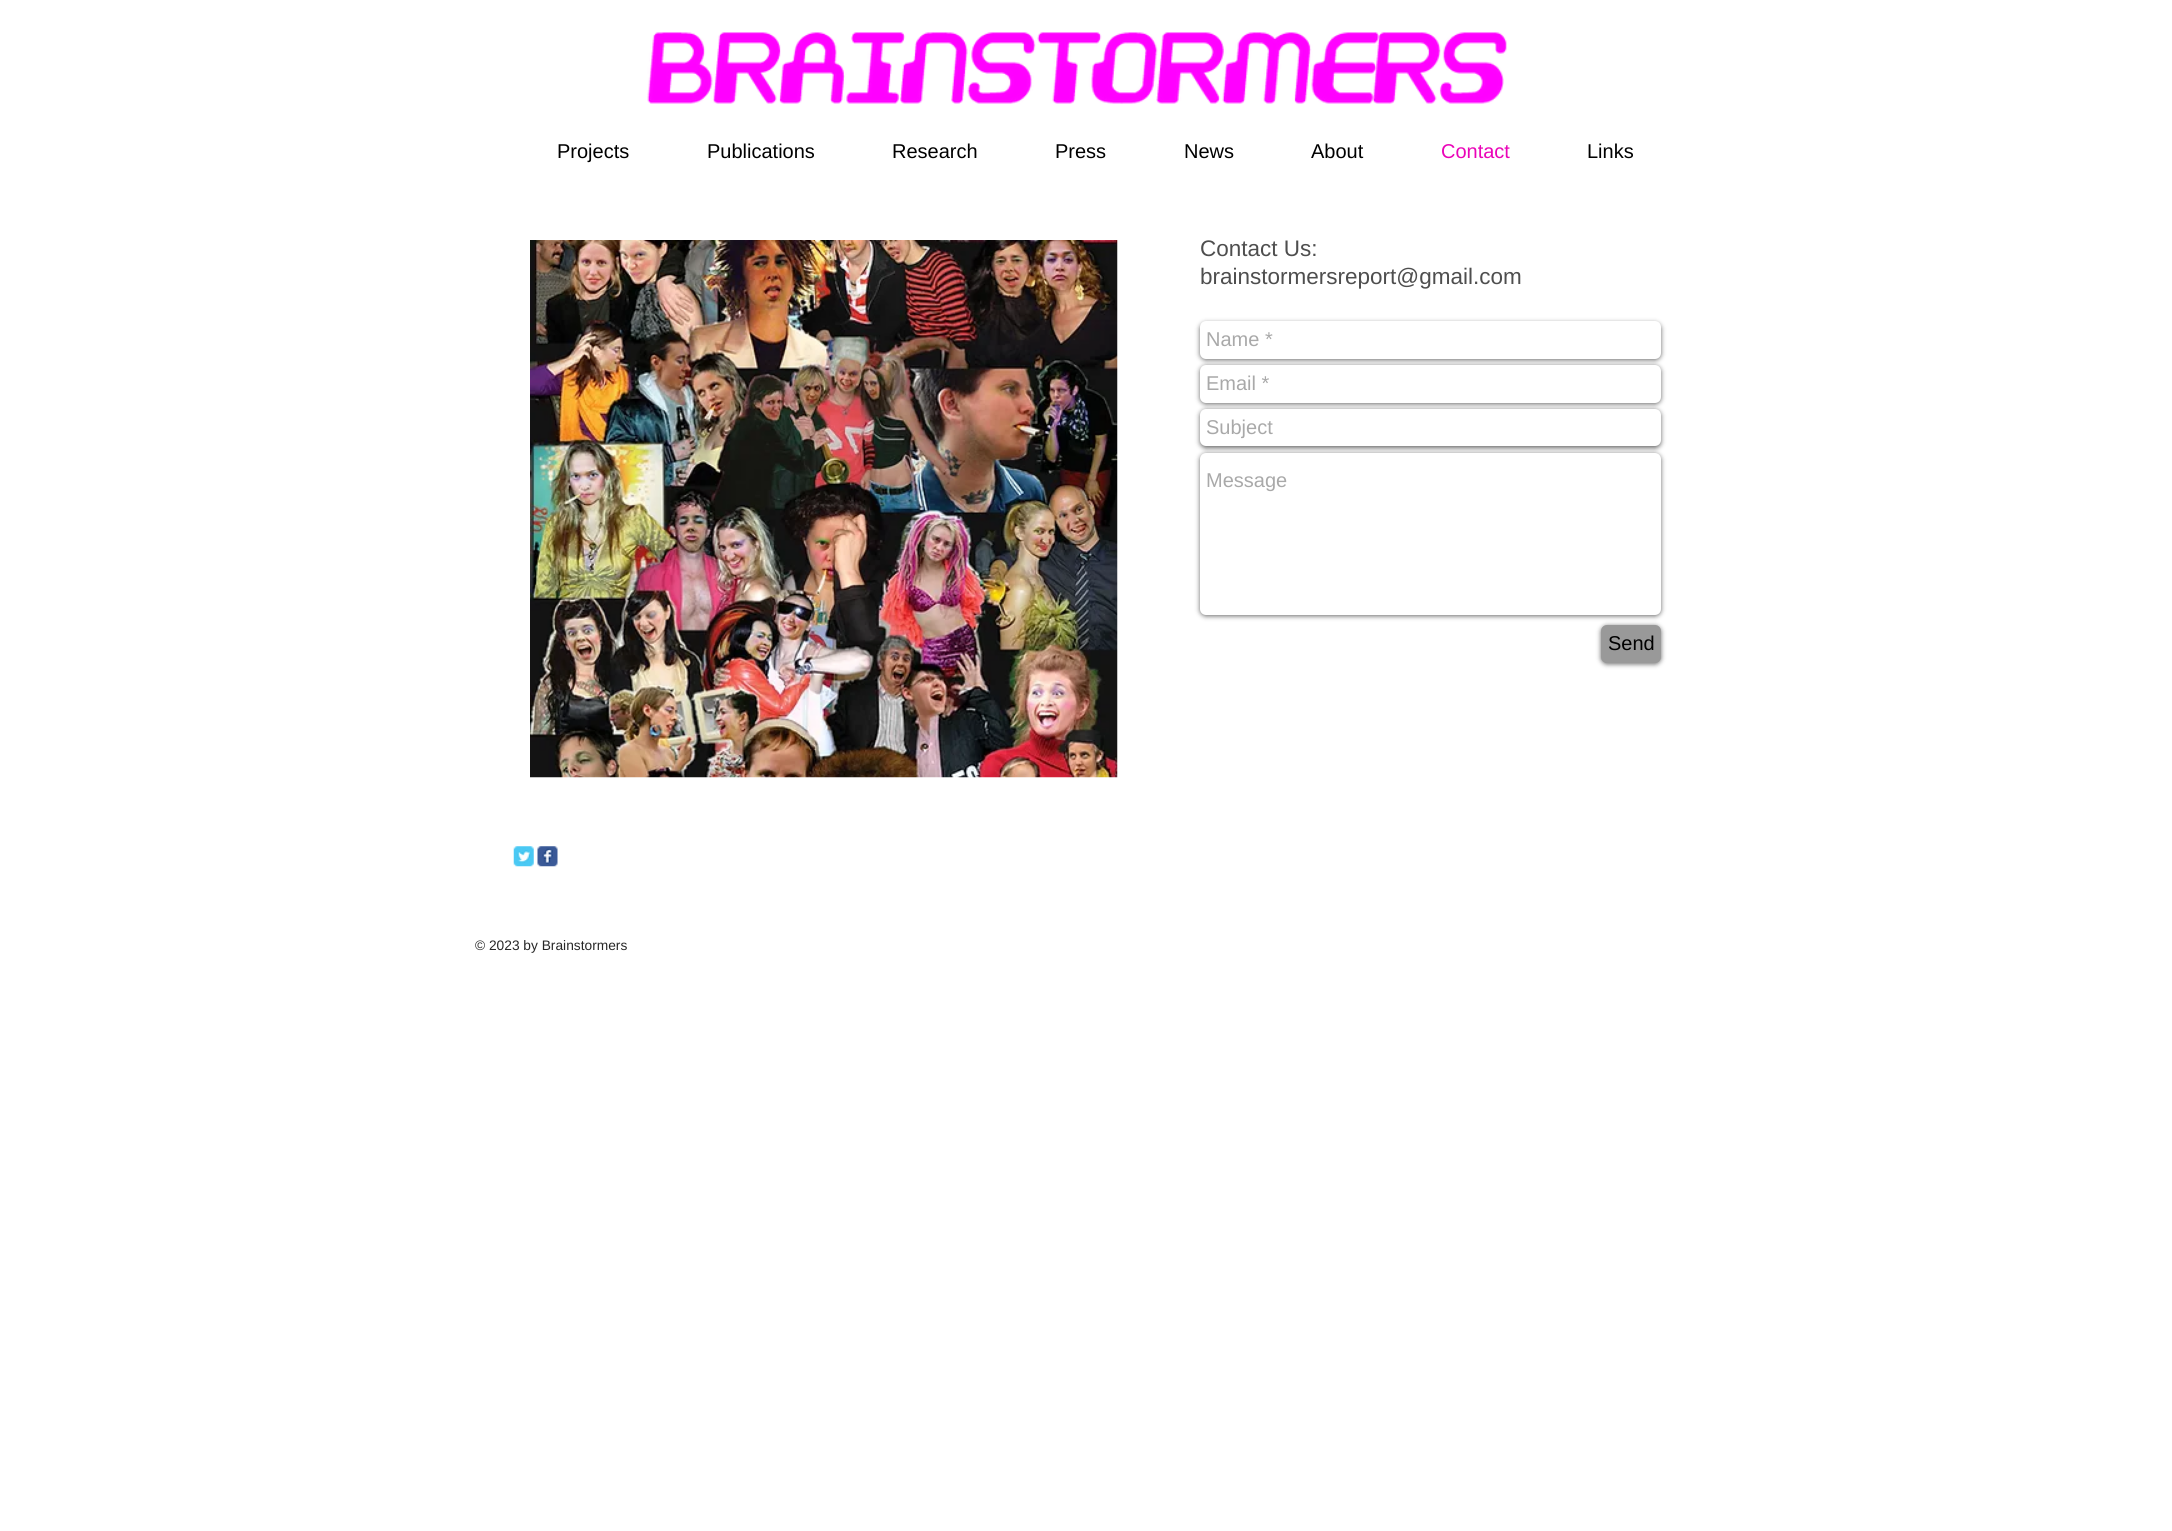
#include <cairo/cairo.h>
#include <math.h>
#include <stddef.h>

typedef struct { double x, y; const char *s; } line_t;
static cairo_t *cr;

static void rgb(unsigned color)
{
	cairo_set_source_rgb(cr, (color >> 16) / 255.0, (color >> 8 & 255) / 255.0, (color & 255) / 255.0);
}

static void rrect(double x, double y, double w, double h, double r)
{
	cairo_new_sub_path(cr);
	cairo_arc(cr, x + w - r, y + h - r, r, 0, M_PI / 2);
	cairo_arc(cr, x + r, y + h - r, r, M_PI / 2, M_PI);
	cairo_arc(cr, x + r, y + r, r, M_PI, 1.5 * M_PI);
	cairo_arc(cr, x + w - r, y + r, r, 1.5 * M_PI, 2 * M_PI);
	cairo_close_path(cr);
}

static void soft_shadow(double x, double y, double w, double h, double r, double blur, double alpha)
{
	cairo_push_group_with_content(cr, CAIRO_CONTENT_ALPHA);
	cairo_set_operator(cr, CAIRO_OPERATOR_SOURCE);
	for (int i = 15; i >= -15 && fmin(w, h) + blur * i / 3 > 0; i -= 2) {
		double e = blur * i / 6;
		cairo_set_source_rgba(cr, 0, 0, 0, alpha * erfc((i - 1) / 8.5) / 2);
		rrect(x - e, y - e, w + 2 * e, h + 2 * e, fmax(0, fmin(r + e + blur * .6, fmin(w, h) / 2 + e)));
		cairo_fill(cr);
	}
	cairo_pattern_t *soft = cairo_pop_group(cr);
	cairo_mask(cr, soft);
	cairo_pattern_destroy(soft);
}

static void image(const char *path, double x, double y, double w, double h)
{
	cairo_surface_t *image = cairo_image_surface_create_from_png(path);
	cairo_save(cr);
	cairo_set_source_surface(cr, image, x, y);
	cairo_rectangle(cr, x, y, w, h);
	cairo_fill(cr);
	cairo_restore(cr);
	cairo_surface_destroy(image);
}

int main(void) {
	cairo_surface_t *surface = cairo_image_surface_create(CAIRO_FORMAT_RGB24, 2172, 1531);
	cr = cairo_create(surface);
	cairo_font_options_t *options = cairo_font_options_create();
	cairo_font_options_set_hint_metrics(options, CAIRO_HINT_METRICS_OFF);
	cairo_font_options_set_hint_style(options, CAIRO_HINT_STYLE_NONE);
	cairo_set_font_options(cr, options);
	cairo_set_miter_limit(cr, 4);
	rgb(0xffffff);
	cairo_paint(cr);
	image("img/1.png", 647, 32, 860, 72);
	image("img/2.png", 530, 240, 588, 538);
	rgb(0x000000);
	soft_shadow(1200, 323, 461, 37, 6, 2.5, 0.6);
	rgb(0xffffff);
	rrect(1200, 321, 461, 38, 6);
	cairo_fill(cr);
	rgb(0x000000);
	soft_shadow(1200, 366, 461, 38, 6, 2.5, 0.6);
	rgb(0xffffff);
	rrect(1200, 365, 461, 38, 6);
	cairo_fill(cr);
	rgb(0x000000);
	soft_shadow(1200, 410, 461, 38, 6, 2.5, 0.6);
	rgb(0xffffff);
	rrect(1200, 409, 461, 37, 6);
	cairo_fill(cr);
	rgb(0x000000);
	soft_shadow(1200, 454, 461, 162, 6, 2.5, 0.6);
	rgb(0xffffff);
	rrect(1200, 453, 461, 162, 6);
	cairo_fill(cr);
	rgb(0x000000);
	soft_shadow(1601, 626, 60, 38, 6, 2.5, 0.6);
	rgb(0x999999);
	rrect(1601, 625, 60, 38, 6);
	cairo_fill(cr);
	image("img/3.png", 513, 846, 21, 21);
	image("img/4.png", 537, 846, 21, 21);
	cairo_select_font_face(cr, "Liberation Sans", CAIRO_FONT_SLANT_NORMAL, CAIRO_FONT_WEIGHT_NORMAL);
	cairo_set_font_size(cr, 20);
	rgb(0x000000);
	{
		static const line_t items[] = {
			{557, 158, "Projects"},
			{707, 158, "Publications"},
			{892, 158, "Research"},
			{1055, 158, "Press"},
			{1184, 158, "News"},
			{1311, 158, "About"},
		};
		for (size_t i = 0; i < sizeof items / sizeof *items; i++) {
			cairo_move_to(cr, items[i].x, items[i].y);
			cairo_show_text(cr, items[i].s);
		}
	}
	rgb(0xea04b8);
	cairo_move_to(cr, 1441, 158);
	cairo_show_text(cr, "Contact");
	rgb(0x000000);
	cairo_move_to(cr, 1587, 158);
	cairo_show_text(cr, "Links");
	cairo_set_font_size(cr, 22.5);
	rgb(0x4e4e4e);
	cairo_move_to(cr, 1200, 256);
	cairo_show_text(cr, "Contact Us:");
	cairo_move_to(cr, 1200, 284);
	cairo_show_text(cr, "brainstormersreport@gmail.com");
	cairo_set_font_size(cr, 20);
	rgb(0xa9a9a9);
	{
		static const line_t items[] = {
			{1206, 346, "Name *"},
			{1206, 390, "Email *"},
			{1206, 434, "Subject"},
			{1206, 487, "Message"},
		};
		for (size_t i = 0; i < sizeof items / sizeof *items; i++) {
			cairo_move_to(cr, items[i].x, items[i].y);
			cairo_show_text(cr, items[i].s);
		}
	}
	rgb(0x000000);
	cairo_move_to(cr, 1608, 650);
	cairo_show_text(cr, "Send");
	cairo_set_font_size(cr, 13.75);
	rgb(0x272727);
	cairo_move_to(cr, 475, 950);
	cairo_show_text(cr, "© 2023 by Brainstormers");
	cairo_surface_write_to_png(surface, "page.png");
	cairo_font_options_destroy(options);
	cairo_destroy(cr);
	cairo_surface_destroy(surface);
	return 0;
}
